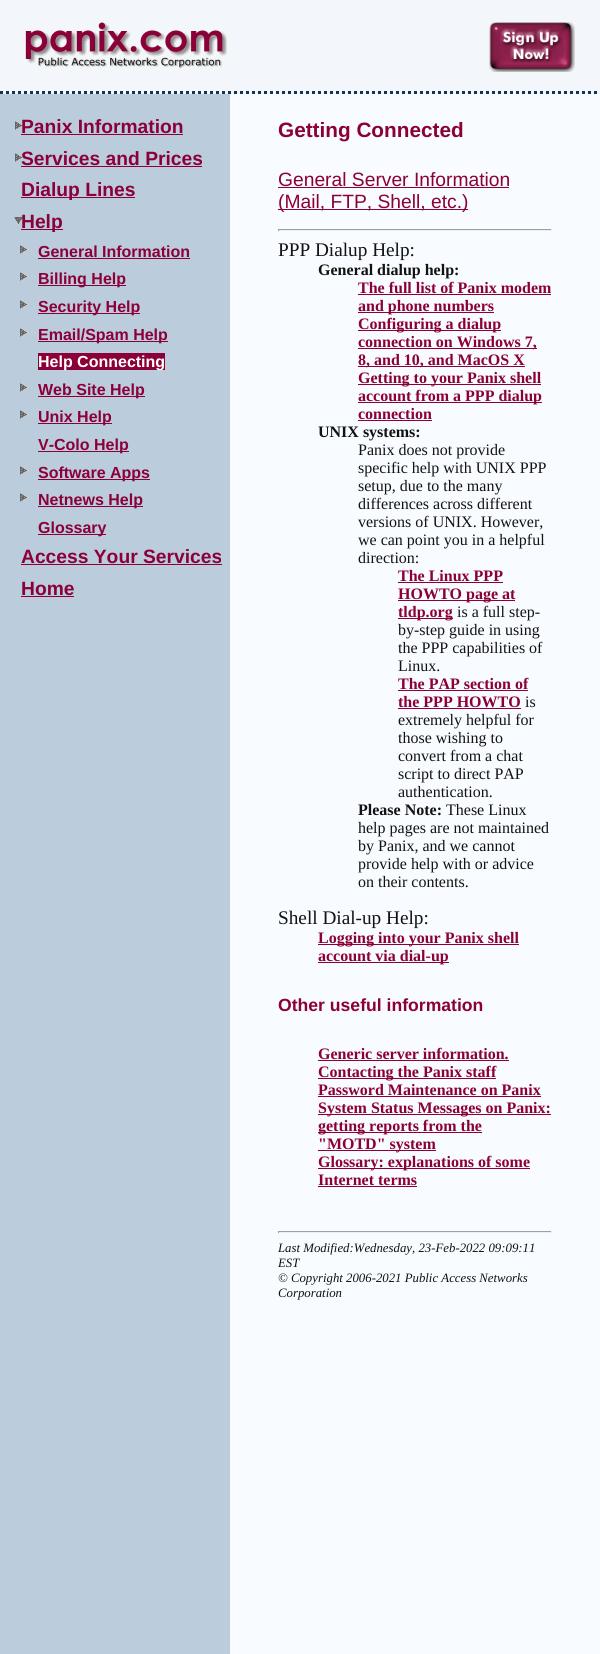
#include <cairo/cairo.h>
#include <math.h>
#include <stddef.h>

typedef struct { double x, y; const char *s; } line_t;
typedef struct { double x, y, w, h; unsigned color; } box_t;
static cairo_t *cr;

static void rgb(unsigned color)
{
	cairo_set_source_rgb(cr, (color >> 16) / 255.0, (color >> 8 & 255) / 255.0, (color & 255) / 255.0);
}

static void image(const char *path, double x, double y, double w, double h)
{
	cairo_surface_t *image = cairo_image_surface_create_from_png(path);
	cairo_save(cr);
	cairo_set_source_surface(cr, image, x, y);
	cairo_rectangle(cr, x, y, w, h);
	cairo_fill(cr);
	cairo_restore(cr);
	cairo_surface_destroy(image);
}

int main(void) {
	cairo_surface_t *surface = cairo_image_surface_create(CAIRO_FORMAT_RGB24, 600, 1654);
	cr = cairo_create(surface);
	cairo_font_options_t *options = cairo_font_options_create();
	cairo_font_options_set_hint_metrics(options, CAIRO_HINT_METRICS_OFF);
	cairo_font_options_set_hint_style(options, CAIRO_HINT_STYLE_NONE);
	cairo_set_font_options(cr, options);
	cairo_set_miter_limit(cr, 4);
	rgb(0xf8fbff);
	cairo_paint(cr);
	rgb(0xf3f6fa);
	cairo_rectangle(cr, 0, 0, 600, 94);
	cairo_fill(cr);
	cairo_new_path(cr);
	cairo_move_to(cr, 0, 92.5);
	cairo_line_to(cr, 600, 92.5);
	rgb(0x123456);
	cairo_set_line_width(cr, 3);
	cairo_set_dash(cr, (double[]){3, 3}, 2, 0);
	cairo_stroke(cr);
	image("img/1.png", 25, 22, 202, 47);
	image("img/2.png", 489, 22, 86, 50);
	rgb(0xbbccdd);
	cairo_rectangle(cr, 0, 94, 230, 1560);
	cairo_fill(cr);
	image("img/3.png", 15, 121, 8, 9);
	rgb(0x8c0039);
	cairo_rectangle(cr, 21, 134, 162, 1);
	cairo_fill(cr);
	image("img/3.png", 15, 153, 8, 9);
	cairo_rectangle(cr, 21, 166, 181, 1);
	cairo_fill(cr);
	cairo_rectangle(cr, 21, 197, 114, 1);
	cairo_fill(cr);
	image("img/4.png", 14, 217, 9, 8);
	cairo_rectangle(cr, 21, 229, 42, 1);
	cairo_fill(cr);
	image("img/3.png", 20, 245, 8, 9);
	cairo_rectangle(cr, 38, 258, 152, 1);
	cairo_fill(cr);
	image("img/3.png", 20, 272, 8, 9);
	cairo_rectangle(cr, 38, 285, 88, 1);
	cairo_fill(cr);
	image("img/3.png", 20, 300, 8, 9);
	cairo_rectangle(cr, 38, 313, 102, 1);
	cairo_fill(cr);
	image("img/3.png", 20, 328, 8, 9);
	cairo_rectangle(cr, 38, 341, 130, 1);
	cairo_fill(cr);
	cairo_rectangle(cr, 38, 353, 127, 17);
	cairo_fill(cr);
	image("img/3.png", 20, 383, 8, 9);
	cairo_rectangle(cr, 38, 396, 107, 1);
	cairo_fill(cr);
	image("img/3.png", 20, 410, 8, 9);
	cairo_rectangle(cr, 38, 423, 74, 1);
	cairo_fill(cr);
	cairo_rectangle(cr, 38, 451, 91, 1);
	cairo_fill(cr);
	image("img/3.png", 20, 466, 8, 9);
	cairo_rectangle(cr, 38, 479, 112, 1);
	cairo_fill(cr);
	image("img/3.png", 20, 493, 8, 9);
	{
		static const box_t items[] = {
			{38, 506, 105, 1, 0x8c0039},
			{38, 534, 68, 1, 0x8c0039},
			{21, 564, 201, 1, 0x8c0039},
			{21, 596, 53, 1, 0x8c0039},
			{278, 187, 231, 1, 0x8c0039},
			{278, 209, 190, 1, 0x8c0039},
			{278, 229, 274, 1, 0x9f9f9f},
			{551, 229, 1, 2, 0xeeeeee},
			{278, 230, 274, 1, 0xeeeeee},
			{278, 229, 1, 2, 0x9f9f9f},
			{358, 294, 193, 1, 0x8c0039},
			{358, 312, 136, 1, 0x8c0039},
			{358, 330, 143, 1, 0x8c0039},
			{358, 348, 179, 1, 0x8c0039},
			{358, 366, 167, 1, 0x8c0039},
			{358, 384, 183, 1, 0x8c0039},
			{358, 402, 184, 1, 0x8c0039},
			{358, 420, 74, 1, 0x8c0039},
			{398, 582, 105, 1, 0x8c0039},
			{398, 600, 117, 1, 0x8c0039},
			{398, 618, 55, 1, 0x8c0039},
			{398, 690, 130, 1, 0x8c0039},
			{398, 708, 123, 1, 0x8c0039},
			{318, 944, 201, 1, 0x8c0039},
			{318, 962, 131, 1, 0x8c0039},
			{318, 1060, 191, 1, 0x8c0039},
			{318, 1078, 178, 1, 0x8c0039},
			{318, 1096, 223, 1, 0x8c0039},
			{318, 1114, 233, 1, 0x8c0039},
			{318, 1132, 164, 1, 0x8c0039},
			{318, 1150, 118, 1, 0x8c0039},
			{318, 1168, 212, 1, 0x8c0039},
			{318, 1186, 99, 1, 0x8c0039},
			{278, 1231, 274, 1, 0x9f9f9f},
			{551, 1231, 1, 2, 0xeeeeee},
			{278, 1232, 274, 1, 0xeeeeee},
			{278, 1231, 1, 2, 0x9f9f9f},
		};
		for (size_t i = 0; i < sizeof items / sizeof *items; i++) {
			rgb(items[i].color);
			cairo_rectangle(cr, items[i].x, items[i].y, items[i].w, items[i].h);
			cairo_fill(cr);
		}
	}
	cairo_select_font_face(cr, "Liberation Sans", CAIRO_FONT_SLANT_NORMAL, CAIRO_FONT_WEIGHT_BOLD);
	cairo_set_font_size(cr, 19.25);
	rgb(0x8c0039);
	{
		static const line_t items[] = {
			{21, 133, "Panix Information"},
			{21, 165, "Services and Prices"},
			{21, 196, "Dialup Lines"},
			{21, 228, "Help"},
		};
		for (size_t i = 0; i < sizeof items / sizeof *items; i++) {
			cairo_move_to(cr, items[i].x, items[i].y);
			cairo_show_text(cr, items[i].s);
		}
	}
	cairo_set_font_size(cr, 16);
	{
		static const line_t items[] = {
			{38, 257, "General Information"},
			{38, 284, "Billing Help"},
			{38, 312, "Security Help"},
			{38, 340, "Email/Spam Help"},
		};
		for (size_t i = 0; i < sizeof items / sizeof *items; i++) {
			cairo_move_to(cr, items[i].x, items[i].y);
			cairo_show_text(cr, items[i].s);
		}
	}
	rgb(0xfffffa);
	cairo_move_to(cr, 38, 367);
	cairo_show_text(cr, "Help Connecting");
	rgb(0x8c0039);
	{
		static const line_t items[] = {
			{38, 395, "Web Site Help"},
			{38, 422, "Unix Help"},
			{38, 450, "V-Colo Help"},
			{38, 478, "Software Apps"},
			{38, 505, "Netnews Help"},
			{38, 533, "Glossary"},
		};
		for (size_t i = 0; i < sizeof items / sizeof *items; i++) {
			cairo_move_to(cr, items[i].x, items[i].y);
			cairo_show_text(cr, items[i].s);
		}
	}
	cairo_set_font_size(cr, 19.25);
	cairo_move_to(cr, 21, 563);
	cairo_show_text(cr, "Access Your Services");
	cairo_move_to(cr, 21, 595);
	cairo_show_text(cr, "Home");
	cairo_set_font_size(cr, 20.75);
	cairo_move_to(cr, 278, 137);
	cairo_show_text(cr, "Getting Connected");
	cairo_select_font_face(cr, "Liberation Sans", CAIRO_FONT_SLANT_NORMAL, CAIRO_FONT_WEIGHT_NORMAL);
	cairo_set_font_size(cr, 19.25);
	cairo_move_to(cr, 278, 186);
	cairo_show_text(cr, "General Server Information");
	cairo_move_to(cr, 278, 208);
	cairo_show_text(cr, "(Mail, FTP, Shell, etc.)");
	cairo_select_font_face(cr, "Liberation Serif", CAIRO_FONT_SLANT_NORMAL, CAIRO_FONT_WEIGHT_NORMAL);
	rgb(0x121212);
	cairo_move_to(cr, 278, 256);
	cairo_show_text(cr, "PPP Dialup Help:");
	cairo_select_font_face(cr, "Liberation Serif", CAIRO_FONT_SLANT_NORMAL, CAIRO_FONT_WEIGHT_BOLD);
	cairo_set_font_size(cr, 16);
	cairo_move_to(cr, 318, 275);
	cairo_show_text(cr, "General dialup help:");
	rgb(0x8c0039);
	{
		static const line_t items[] = {
			{358, 293, "The full list of Panix modem"},
			{358, 311, "and phone numbers"},
			{358, 329, "Configuring a dialup"},
			{358, 347, "connection on Windows 7,"},
			{358, 365, "8, and 10, and MacOS X"},
			{358, 383, "Getting to your Panix shell"},
			{358, 401, "account from a PPP dialup"},
			{358, 419, "connection"},
		};
		for (size_t i = 0; i < sizeof items / sizeof *items; i++) {
			cairo_move_to(cr, items[i].x, items[i].y);
			cairo_show_text(cr, items[i].s);
		}
	}
	rgb(0x121212);
	cairo_move_to(cr, 318, 437);
	cairo_show_text(cr, "UNIX systems:");
	cairo_select_font_face(cr, "Liberation Serif", CAIRO_FONT_SLANT_NORMAL, CAIRO_FONT_WEIGHT_NORMAL);
	{
		static const line_t items[] = {
			{358, 455, "Panix does not provide"},
			{358, 473, "specific help with UNIX PPP"},
			{358, 491, "setup, due to the many"},
			{358, 509, "differences across different"},
			{358, 527, "versions of UNIX. However,"},
			{358, 545, "we can point you in a helpful"},
			{358, 563, "direction:"},
		};
		for (size_t i = 0; i < sizeof items / sizeof *items; i++) {
			cairo_move_to(cr, items[i].x, items[i].y);
			cairo_show_text(cr, items[i].s);
		}
	}
	cairo_select_font_face(cr, "Liberation Serif", CAIRO_FONT_SLANT_NORMAL, CAIRO_FONT_WEIGHT_BOLD);
	rgb(0x8c0039);
	{
		static const line_t items[] = {
			{398, 581, "The Linux PPP"},
			{398, 599, "HOWTO page at"},
			{398, 617, "tldp.org"},
		};
		for (size_t i = 0; i < sizeof items / sizeof *items; i++) {
			cairo_move_to(cr, items[i].x, items[i].y);
			cairo_show_text(cr, items[i].s);
		}
	}
	cairo_select_font_face(cr, "Liberation Serif", CAIRO_FONT_SLANT_NORMAL, CAIRO_FONT_WEIGHT_NORMAL);
	rgb(0x121212);
	{
		static const line_t items[] = {
			{457, 617, "is a full step-"},
			{398, 635, "by-step guide in using"},
			{398, 653, "the PPP capabilities of"},
			{398, 671, "Linux."},
		};
		for (size_t i = 0; i < sizeof items / sizeof *items; i++) {
			cairo_move_to(cr, items[i].x, items[i].y);
			cairo_show_text(cr, items[i].s);
		}
	}
	cairo_select_font_face(cr, "Liberation Serif", CAIRO_FONT_SLANT_NORMAL, CAIRO_FONT_WEIGHT_BOLD);
	rgb(0x8c0039);
	cairo_move_to(cr, 398, 689);
	cairo_show_text(cr, "The PAP section of");
	cairo_move_to(cr, 398, 707);
	cairo_show_text(cr, "the PPP HOWTO");
	cairo_select_font_face(cr, "Liberation Serif", CAIRO_FONT_SLANT_NORMAL, CAIRO_FONT_WEIGHT_NORMAL);
	rgb(0x121212);
	{
		static const line_t items[] = {
			{525, 707, "is"},
			{398, 725, "extremely helpful for"},
			{398, 743, "those wishing to"},
			{398, 761, "convert from a chat"},
			{398, 779, "script to direct PAP"},
			{398, 797, "authentication."},
		};
		for (size_t i = 0; i < sizeof items / sizeof *items; i++) {
			cairo_move_to(cr, items[i].x, items[i].y);
			cairo_show_text(cr, items[i].s);
		}
	}
	cairo_select_font_face(cr, "Liberation Serif", CAIRO_FONT_SLANT_NORMAL, CAIRO_FONT_WEIGHT_BOLD);
	cairo_move_to(cr, 358, 815);
	cairo_show_text(cr, "Please Note:");
	cairo_select_font_face(cr, "Liberation Serif", CAIRO_FONT_SLANT_NORMAL, CAIRO_FONT_WEIGHT_NORMAL);
	{
		static const line_t items[] = {
			{446, 815, "These Linux"},
			{358, 833, "help pages are not maintained"},
			{358, 851, "by Panix, and we cannot"},
			{358, 869, "provide help with or advice"},
			{358, 887, "on their contents."},
		};
		for (size_t i = 0; i < sizeof items / sizeof *items; i++) {
			cairo_move_to(cr, items[i].x, items[i].y);
			cairo_show_text(cr, items[i].s);
		}
	}
	cairo_set_font_size(cr, 19.25);
	cairo_move_to(cr, 278, 924);
	cairo_show_text(cr, "Shell Dial-up Help:");
	cairo_select_font_face(cr, "Liberation Serif", CAIRO_FONT_SLANT_NORMAL, CAIRO_FONT_WEIGHT_BOLD);
	cairo_set_font_size(cr, 16);
	rgb(0x8c0039);
	cairo_move_to(cr, 318, 943);
	cairo_show_text(cr, "Logging into your Panix shell");
	cairo_move_to(cr, 318, 961);
	cairo_show_text(cr, "account via dial-up");
	cairo_select_font_face(cr, "Liberation Sans", CAIRO_FONT_SLANT_NORMAL, CAIRO_FONT_WEIGHT_BOLD);
	cairo_set_font_size(cr, 17.6);
	cairo_move_to(cr, 278, 1011);
	cairo_show_text(cr, "Other useful information");
	cairo_select_font_face(cr, "Liberation Serif", CAIRO_FONT_SLANT_NORMAL, CAIRO_FONT_WEIGHT_BOLD);
	cairo_set_font_size(cr, 16);
	{
		static const line_t items[] = {
			{318, 1059, "Generic server information."},
			{318, 1077, "Contacting the Panix staff"},
			{318, 1095, "Password Maintenance on Panix"},
			{318, 1113, "System Status Messages on Panix:"},
			{318, 1131, "getting reports from the"},
			{318, 1149, "\"MOTD\" system"},
			{318, 1167, "Glossary: explanations of some"},
			{318, 1185, "Internet terms"},
		};
		for (size_t i = 0; i < sizeof items / sizeof *items; i++) {
			cairo_move_to(cr, items[i].x, items[i].y);
			cairo_show_text(cr, items[i].s);
		}
	}
	cairo_select_font_face(cr, "Liberation Serif", CAIRO_FONT_SLANT_ITALIC, CAIRO_FONT_WEIGHT_NORMAL);
	cairo_set_font_size(cr, 12.8);
	rgb(0x121212);
	{
		static const line_t items[] = {
			{278, 1252, "Last Modified:Wednesday, 23-Feb-2022 09:09:11"},
			{278, 1267, "EST"},
			{278, 1282, "© Copyright 2006-2021 Public Access Networks"},
			{278, 1297, "Corporation"},
		};
		for (size_t i = 0; i < sizeof items / sizeof *items; i++) {
			cairo_move_to(cr, items[i].x, items[i].y);
			cairo_show_text(cr, items[i].s);
		}
	}
	cairo_surface_write_to_png(surface, "page.png");
	cairo_font_options_destroy(options);
	cairo_destroy(cr);
	cairo_surface_destroy(surface);
	return 0;
}
